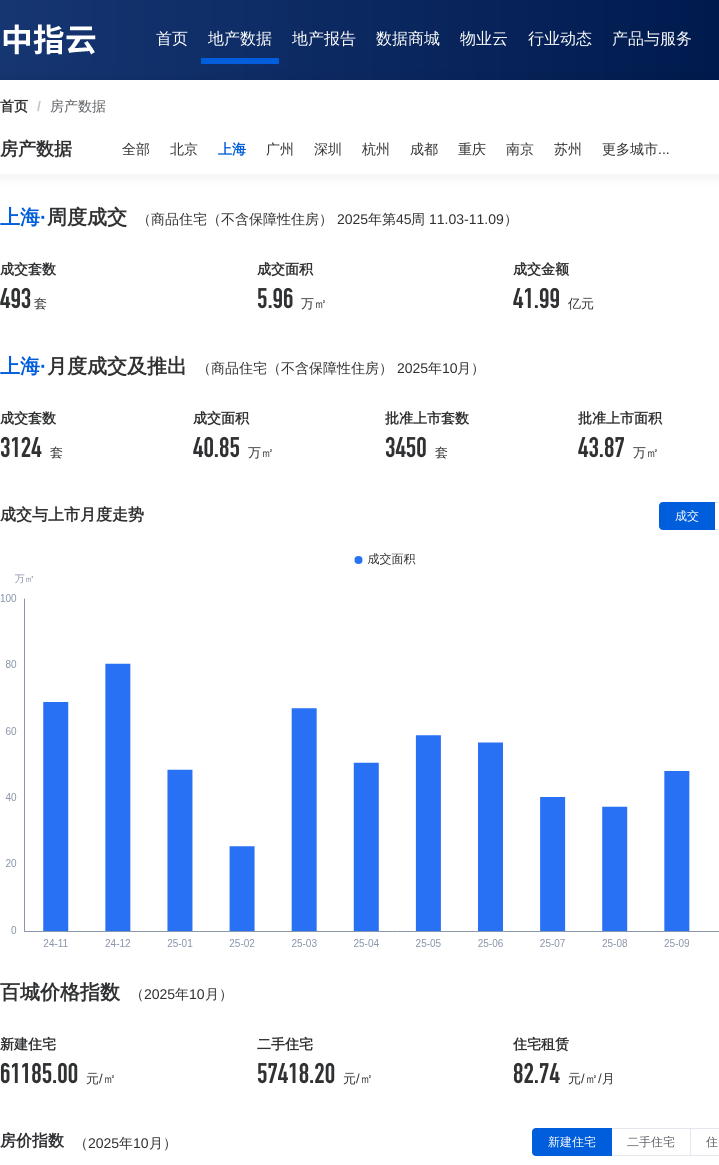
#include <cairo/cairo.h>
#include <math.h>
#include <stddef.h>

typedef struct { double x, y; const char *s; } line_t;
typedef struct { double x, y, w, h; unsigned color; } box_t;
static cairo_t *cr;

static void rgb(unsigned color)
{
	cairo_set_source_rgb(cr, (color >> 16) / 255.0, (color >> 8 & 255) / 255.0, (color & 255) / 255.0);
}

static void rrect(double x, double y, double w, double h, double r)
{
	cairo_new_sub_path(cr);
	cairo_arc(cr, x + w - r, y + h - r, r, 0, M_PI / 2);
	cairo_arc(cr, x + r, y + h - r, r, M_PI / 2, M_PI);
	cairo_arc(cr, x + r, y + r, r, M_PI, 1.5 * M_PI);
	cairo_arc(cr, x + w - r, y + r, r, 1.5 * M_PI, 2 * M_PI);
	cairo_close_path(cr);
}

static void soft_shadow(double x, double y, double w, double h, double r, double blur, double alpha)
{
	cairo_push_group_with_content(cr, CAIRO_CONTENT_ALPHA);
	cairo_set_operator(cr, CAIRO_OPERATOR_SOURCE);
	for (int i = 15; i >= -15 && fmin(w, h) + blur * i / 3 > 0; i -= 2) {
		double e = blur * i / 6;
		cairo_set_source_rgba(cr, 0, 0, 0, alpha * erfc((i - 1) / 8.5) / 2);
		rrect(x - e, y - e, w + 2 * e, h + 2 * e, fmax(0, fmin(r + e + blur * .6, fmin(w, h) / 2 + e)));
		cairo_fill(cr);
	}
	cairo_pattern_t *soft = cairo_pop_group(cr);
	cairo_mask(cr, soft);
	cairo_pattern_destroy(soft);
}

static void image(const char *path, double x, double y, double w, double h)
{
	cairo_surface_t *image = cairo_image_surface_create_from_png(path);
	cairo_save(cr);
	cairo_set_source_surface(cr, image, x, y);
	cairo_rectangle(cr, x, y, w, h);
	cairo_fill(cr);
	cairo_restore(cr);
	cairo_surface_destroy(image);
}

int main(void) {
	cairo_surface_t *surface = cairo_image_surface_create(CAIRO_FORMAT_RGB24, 719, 1165);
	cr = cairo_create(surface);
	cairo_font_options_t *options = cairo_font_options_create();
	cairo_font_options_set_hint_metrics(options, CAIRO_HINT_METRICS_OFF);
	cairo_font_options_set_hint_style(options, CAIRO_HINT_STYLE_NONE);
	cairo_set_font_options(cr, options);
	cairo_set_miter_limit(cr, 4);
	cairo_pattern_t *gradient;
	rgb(0xffffff);
	cairo_paint(cr);
	gradient = cairo_pattern_create_linear(0, 40, 719, 40);
	cairo_pattern_add_color_stop_rgba(gradient, 0, 0.086, 0.212, 0.447, 1);
	cairo_pattern_add_color_stop_rgba(gradient, 1, 0, 0.102, 0.306, 1);
	cairo_set_source(cr, gradient);
	cairo_pattern_destroy(gradient);
	cairo_rectangle(cr, 0, 0, 719, 80);
	cairo_fill(cr);
	image("img/1.png", 3, 24, 93, 31);
	rgb(0x005ddb);
	cairo_rectangle(cr, 201, 58, 78, 6);
	cairo_fill(cr);
	rgb(0x000000);
	soft_shadow(-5, 75, 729, 104, 0, 5, 0.05);
	rgb(0xffffff);
	cairo_rectangle(cr, 0, 80, 719, 94);
	cairo_fill(cr);
	rgb(0x005ddb);
	cairo_new_path(cr);
	cairo_move_to(cr, 663, 502.5);
	cairo_line_to(cr, 714.5, 502.5);
	cairo_line_to(cr, 714.5, 529.5);
	cairo_line_to(cr, 663, 529.5);
	cairo_curve_to(cr, 661, 529.5, 659.5, 528, 659.5, 526);
	cairo_line_to(cr, 659.5, 506);
	cairo_curve_to(cr, 659.5, 504, 661, 502.5, 663, 502.5);
	cairo_close_path(cr);
	cairo_fill_preserve(cr);
	cairo_set_line_width(cr, 1);
	cairo_stroke(cr);
	rgb(0xe4e7ed);
	cairo_set_fill_rule(cr, CAIRO_FILL_RULE_EVEN_ODD);
	cairo_new_path(cr);
	cairo_move_to(cr, 715, 502);
	cairo_line_to(cr, 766, 502);
	cairo_curve_to(cr, 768, 502, 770, 504, 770, 506);
	cairo_line_to(cr, 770, 526);
	cairo_curve_to(cr, 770, 528, 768, 530, 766, 530);
	cairo_line_to(cr, 715, 530);
	cairo_close_path(cr);
	cairo_move_to(cr, 715, 503);
	cairo_line_to(cr, 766, 503);
	cairo_curve_to(cr, 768, 503, 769, 504, 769, 506);
	cairo_line_to(cr, 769, 526);
	cairo_curve_to(cr, 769, 528, 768, 529, 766, 529);
	cairo_line_to(cr, 715, 529);
	cairo_close_path(cr);
	cairo_fill(cr);
	image("img/2.png", 0, 552, 719, 395);
	rgb(0x005ddb);
	cairo_new_path(cr);
	cairo_move_to(cr, 536, 1128.5);
	cairo_line_to(cr, 611.5, 1128.5);
	cairo_line_to(cr, 611.5, 1155.5);
	cairo_line_to(cr, 536, 1155.5);
	cairo_curve_to(cr, 534, 1155.5, 532.5, 1154, 532.5, 1152);
	cairo_line_to(cr, 532.5, 1132);
	cairo_curve_to(cr, 532.5, 1130, 534, 1128.5, 536, 1128.5);
	cairo_close_path(cr);
	cairo_fill_preserve(cr);
	cairo_stroke(cr);
	{
		static const box_t items[] = {
			{612, 1128, 79, 1, 0xe4e7ed},
			{690, 1128, 1, 28, 0xe4e7ed},
			{612, 1155, 79, 1, 0xe4e7ed},
		};
		for (size_t i = 0; i < sizeof items / sizeof *items; i++) {
			rgb(items[i].color);
			cairo_rectangle(cr, items[i].x, items[i].y, items[i].w, items[i].h);
			cairo_fill(cr);
		}
	}
	cairo_new_path(cr);
	cairo_move_to(cr, 691, 1128);
	cairo_line_to(cr, 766, 1128);
	cairo_curve_to(cr, 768, 1128, 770, 1130, 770, 1132);
	cairo_line_to(cr, 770, 1152);
	cairo_curve_to(cr, 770, 1154, 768, 1156, 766, 1156);
	cairo_line_to(cr, 691, 1156);
	cairo_close_path(cr);
	cairo_move_to(cr, 691, 1129);
	cairo_line_to(cr, 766, 1129);
	cairo_curve_to(cr, 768, 1129, 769, 1130, 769, 1132);
	cairo_line_to(cr, 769, 1152);
	cairo_curve_to(cr, 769, 1154, 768, 1155, 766, 1155);
	cairo_line_to(cr, 691, 1155);
	cairo_close_path(cr);
	cairo_fill(cr);
	cairo_select_font_face(cr, "WenQuanYi Zen Hei Medium", CAIRO_FONT_SLANT_NORMAL, CAIRO_FONT_WEIGHT_NORMAL);
	cairo_set_font_size(cr, 16);
	rgb(0xffffff);
	{
		static const line_t items[] = {
			{156, 44, "首页"},
			{208, 44, "地产数据"},
			{292, 44, "地产报告"},
			{376, 44, "数据商城"},
			{460, 44, "物业云"},
			{528, 44, "行业动态"},
			{612, 44, "产品与服务"},
		};
		for (size_t i = 0; i < sizeof items / sizeof *items; i++) {
			cairo_move_to(cr, items[i].x, items[i].y);
			cairo_show_text(cr, items[i].s);
		}
	}
	cairo_select_font_face(cr, "WenQuanYi Zen Hei", CAIRO_FONT_SLANT_NORMAL, CAIRO_FONT_WEIGHT_BOLD);
	cairo_set_font_size(cr, 14);
	rgb(0x303133);
	cairo_move_to(cr, 0, 111);
	cairo_show_text(cr, "首页");
	cairo_select_font_face(cr, "Liberation Sans", CAIRO_FONT_SLANT_NORMAL, CAIRO_FONT_WEIGHT_BOLD);
	rgb(0xc0c4cc);
	cairo_move_to(cr, 37, 111);
	cairo_show_text(cr, "/");
	cairo_select_font_face(cr, "WenQuanYi Zen Hei Medium", CAIRO_FONT_SLANT_NORMAL, CAIRO_FONT_WEIGHT_NORMAL);
	rgb(0x606266);
	cairo_move_to(cr, 50, 111);
	cairo_show_text(cr, "房产数据");
	cairo_select_font_face(cr, "WenQuanYi Zen Hei", CAIRO_FONT_SLANT_NORMAL, CAIRO_FONT_WEIGHT_BOLD);
	cairo_set_font_size(cr, 18);
	rgb(0x303133);
	cairo_move_to(cr, 0, 155);
	cairo_show_text(cr, "房产数据");
	cairo_select_font_face(cr, "WenQuanYi Zen Hei Medium", CAIRO_FONT_SLANT_NORMAL, CAIRO_FONT_WEIGHT_NORMAL);
	cairo_set_font_size(cr, 14);
	cairo_move_to(cr, 122, 154);
	cairo_show_text(cr, "全部");
	cairo_move_to(cr, 170, 154);
	cairo_show_text(cr, "北京");
	cairo_select_font_face(cr, "WenQuanYi Zen Hei", CAIRO_FONT_SLANT_NORMAL, CAIRO_FONT_WEIGHT_BOLD);
	rgb(0x005ddb);
	cairo_move_to(cr, 218, 154);
	cairo_show_text(cr, "上海");
	cairo_select_font_face(cr, "WenQuanYi Zen Hei Medium", CAIRO_FONT_SLANT_NORMAL, CAIRO_FONT_WEIGHT_NORMAL);
	rgb(0x303133);
	{
		static const line_t items[] = {
			{266, 154, "广州"},
			{314, 154, "深圳"},
			{362, 154, "杭州"},
			{410, 154, "成都"},
			{458, 154, "重庆"},
			{506, 154, "南京"},
			{554, 154, "苏州"},
			{602, 154, "更多城市"},
		};
		for (size_t i = 0; i < sizeof items / sizeof *items; i++) {
			cairo_move_to(cr, items[i].x, items[i].y);
			cairo_show_text(cr, items[i].s);
		}
	}
	cairo_select_font_face(cr, "Liberation Sans", CAIRO_FONT_SLANT_NORMAL, CAIRO_FONT_WEIGHT_NORMAL);
	cairo_move_to(cr, 658, 154);
	cairo_show_text(cr, "...");
	cairo_select_font_face(cr, "WenQuanYi Zen Hei", CAIRO_FONT_SLANT_NORMAL, CAIRO_FONT_WEIGHT_BOLD);
	cairo_set_font_size(cr, 20);
	rgb(0x005ddb);
	cairo_move_to(cr, 0, 224);
	cairo_show_text(cr, "上海");
	cairo_select_font_face(cr, "Liberation Sans", CAIRO_FONT_SLANT_NORMAL, CAIRO_FONT_WEIGHT_BOLD);
	cairo_move_to(cr, 40, 224);
	cairo_show_text(cr, "·");
	cairo_select_font_face(cr, "WenQuanYi Zen Hei", CAIRO_FONT_SLANT_NORMAL, CAIRO_FONT_WEIGHT_BOLD);
	rgb(0x303133);
	cairo_move_to(cr, 47, 224);
	cairo_show_text(cr, "周度成交");
	cairo_select_font_face(cr, "WenQuanYi Zen Hei Medium", CAIRO_FONT_SLANT_NORMAL, CAIRO_FONT_WEIGHT_NORMAL);
	cairo_set_font_size(cr, 14);
	cairo_move_to(cr, 137, 224);
	cairo_show_text(cr, "（商品住宅（不含保障性住房）");
	cairo_select_font_face(cr, "Liberation Sans", CAIRO_FONT_SLANT_NORMAL, CAIRO_FONT_WEIGHT_NORMAL);
	cairo_move_to(cr, 337, 224);
	cairo_show_text(cr, "2025");
	cairo_select_font_face(cr, "WenQuanYi Zen Hei Medium", CAIRO_FONT_SLANT_NORMAL, CAIRO_FONT_WEIGHT_NORMAL);
	cairo_move_to(cr, 368, 224);
	cairo_show_text(cr, "年第");
	cairo_select_font_face(cr, "Liberation Sans", CAIRO_FONT_SLANT_NORMAL, CAIRO_FONT_WEIGHT_NORMAL);
	cairo_move_to(cr, 396, 224);
	cairo_show_text(cr, "45");
	cairo_select_font_face(cr, "WenQuanYi Zen Hei Medium", CAIRO_FONT_SLANT_NORMAL, CAIRO_FONT_WEIGHT_NORMAL);
	cairo_move_to(cr, 411, 224);
	cairo_show_text(cr, "周");
	cairo_select_font_face(cr, "Liberation Sans", CAIRO_FONT_SLANT_NORMAL, CAIRO_FONT_WEIGHT_NORMAL);
	cairo_move_to(cr, 429, 224);
	cairo_show_text(cr, "11.03-11.09");
	cairo_select_font_face(cr, "WenQuanYi Zen Hei Medium", CAIRO_FONT_SLANT_NORMAL, CAIRO_FONT_WEIGHT_NORMAL);
	cairo_move_to(cr, 504, 224);
	cairo_show_text(cr, "）");
	cairo_select_font_face(cr, "WenQuanYi Zen Hei", CAIRO_FONT_SLANT_NORMAL, CAIRO_FONT_WEIGHT_BOLD);
	cairo_move_to(cr, 0, 274);
	cairo_show_text(cr, "成交套数");
	cairo_select_font_face(cr, "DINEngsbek", CAIRO_FONT_SLANT_NORMAL, CAIRO_FONT_WEIGHT_NORMAL);
	cairo_set_font_size(cr, 28);
	cairo_move_to(cr, 0, 308);
	cairo_show_text(cr, "493");
	cairo_select_font_face(cr, "WenQuanYi Zen Hei Medium", CAIRO_FONT_SLANT_NORMAL, CAIRO_FONT_WEIGHT_NORMAL);
	cairo_set_font_size(cr, 13);
	cairo_move_to(cr, 34, 308);
	cairo_show_text(cr, "套");
	cairo_select_font_face(cr, "WenQuanYi Zen Hei", CAIRO_FONT_SLANT_NORMAL, CAIRO_FONT_WEIGHT_BOLD);
	cairo_set_font_size(cr, 14);
	cairo_move_to(cr, 257, 274);
	cairo_show_text(cr, "成交面积");
	cairo_select_font_face(cr, "DINEngsbek", CAIRO_FONT_SLANT_NORMAL, CAIRO_FONT_WEIGHT_NORMAL);
	cairo_set_font_size(cr, 28);
	cairo_move_to(cr, 257, 308);
	cairo_show_text(cr, "5.96");
	cairo_select_font_face(cr, "WenQuanYi Zen Hei Medium", CAIRO_FONT_SLANT_NORMAL, CAIRO_FONT_WEIGHT_NORMAL);
	cairo_set_font_size(cr, 13);
	cairo_move_to(cr, 301, 308);
	cairo_show_text(cr, "万㎡");
	cairo_select_font_face(cr, "WenQuanYi Zen Hei", CAIRO_FONT_SLANT_NORMAL, CAIRO_FONT_WEIGHT_BOLD);
	cairo_set_font_size(cr, 14);
	cairo_move_to(cr, 513, 274);
	cairo_show_text(cr, "成交金额");
	cairo_select_font_face(cr, "DINEngsbek", CAIRO_FONT_SLANT_NORMAL, CAIRO_FONT_WEIGHT_NORMAL);
	cairo_set_font_size(cr, 28);
	cairo_move_to(cr, 513, 308);
	cairo_show_text(cr, "41.99");
	cairo_select_font_face(cr, "WenQuanYi Zen Hei Medium", CAIRO_FONT_SLANT_NORMAL, CAIRO_FONT_WEIGHT_NORMAL);
	cairo_set_font_size(cr, 13);
	cairo_move_to(cr, 568, 308);
	cairo_show_text(cr, "亿元");
	cairo_select_font_face(cr, "WenQuanYi Zen Hei", CAIRO_FONT_SLANT_NORMAL, CAIRO_FONT_WEIGHT_BOLD);
	cairo_set_font_size(cr, 20);
	rgb(0x005ddb);
	cairo_move_to(cr, 0, 373);
	cairo_show_text(cr, "上海");
	cairo_select_font_face(cr, "Liberation Sans", CAIRO_FONT_SLANT_NORMAL, CAIRO_FONT_WEIGHT_BOLD);
	cairo_move_to(cr, 40, 373);
	cairo_show_text(cr, "·");
	cairo_select_font_face(cr, "WenQuanYi Zen Hei", CAIRO_FONT_SLANT_NORMAL, CAIRO_FONT_WEIGHT_BOLD);
	rgb(0x303133);
	cairo_move_to(cr, 47, 373);
	cairo_show_text(cr, "月度成交及推出");
	cairo_select_font_face(cr, "WenQuanYi Zen Hei Medium", CAIRO_FONT_SLANT_NORMAL, CAIRO_FONT_WEIGHT_NORMAL);
	cairo_set_font_size(cr, 14);
	cairo_move_to(cr, 197, 373);
	cairo_show_text(cr, "（商品住宅（不含保障性住房）");
	cairo_select_font_face(cr, "Liberation Sans", CAIRO_FONT_SLANT_NORMAL, CAIRO_FONT_WEIGHT_NORMAL);
	cairo_move_to(cr, 397, 373);
	cairo_show_text(cr, "2025");
	cairo_select_font_face(cr, "WenQuanYi Zen Hei Medium", CAIRO_FONT_SLANT_NORMAL, CAIRO_FONT_WEIGHT_NORMAL);
	cairo_move_to(cr, 428, 373);
	cairo_show_text(cr, "年");
	cairo_select_font_face(cr, "Liberation Sans", CAIRO_FONT_SLANT_NORMAL, CAIRO_FONT_WEIGHT_NORMAL);
	cairo_move_to(cr, 442, 373);
	cairo_show_text(cr, "10");
	cairo_select_font_face(cr, "WenQuanYi Zen Hei Medium", CAIRO_FONT_SLANT_NORMAL, CAIRO_FONT_WEIGHT_NORMAL);
	cairo_move_to(cr, 457, 373);
	cairo_show_text(cr, "月）");
	cairo_select_font_face(cr, "WenQuanYi Zen Hei", CAIRO_FONT_SLANT_NORMAL, CAIRO_FONT_WEIGHT_BOLD);
	cairo_move_to(cr, 0, 423);
	cairo_show_text(cr, "成交套数");
	cairo_select_font_face(cr, "DINEngsbek", CAIRO_FONT_SLANT_NORMAL, CAIRO_FONT_WEIGHT_NORMAL);
	cairo_set_font_size(cr, 28);
	cairo_move_to(cr, 0, 457);
	cairo_show_text(cr, "3124");
	cairo_select_font_face(cr, "WenQuanYi Zen Hei Medium", CAIRO_FONT_SLANT_NORMAL, CAIRO_FONT_WEIGHT_NORMAL);
	cairo_set_font_size(cr, 13);
	cairo_move_to(cr, 50, 457);
	cairo_show_text(cr, "套");
	cairo_select_font_face(cr, "WenQuanYi Zen Hei", CAIRO_FONT_SLANT_NORMAL, CAIRO_FONT_WEIGHT_BOLD);
	cairo_set_font_size(cr, 14);
	cairo_move_to(cr, 193, 423);
	cairo_show_text(cr, "成交面积");
	cairo_save(cr);
	cairo_set_fill_rule(cr, CAIRO_FILL_RULE_WINDING);
	cairo_rectangle(cr, 193, 410, 192, 62);
	cairo_clip(cr);
	cairo_select_font_face(cr, "DINEngsbek", CAIRO_FONT_SLANT_NORMAL, CAIRO_FONT_WEIGHT_NORMAL);
	cairo_set_font_size(cr, 28);
	cairo_move_to(cr, 193, 457);
	cairo_show_text(cr, "40.85");
	cairo_restore(cr);
	cairo_select_font_face(cr, "WenQuanYi Zen Hei Medium", CAIRO_FONT_SLANT_NORMAL, CAIRO_FONT_WEIGHT_NORMAL);
	cairo_set_font_size(cr, 13);
	cairo_move_to(cr, 248, 457);
	cairo_show_text(cr, "万㎡");
	cairo_select_font_face(cr, "WenQuanYi Zen Hei", CAIRO_FONT_SLANT_NORMAL, CAIRO_FONT_WEIGHT_BOLD);
	cairo_set_font_size(cr, 14);
	cairo_move_to(cr, 385, 423);
	cairo_show_text(cr, "批准上市套数");
	cairo_select_font_face(cr, "DINEngsbek", CAIRO_FONT_SLANT_NORMAL, CAIRO_FONT_WEIGHT_NORMAL);
	cairo_set_font_size(cr, 28);
	cairo_move_to(cr, 385, 457);
	cairo_show_text(cr, "3450");
	cairo_select_font_face(cr, "WenQuanYi Zen Hei Medium", CAIRO_FONT_SLANT_NORMAL, CAIRO_FONT_WEIGHT_NORMAL);
	cairo_set_font_size(cr, 13);
	cairo_move_to(cr, 435, 457);
	cairo_show_text(cr, "套");
	cairo_select_font_face(cr, "WenQuanYi Zen Hei", CAIRO_FONT_SLANT_NORMAL, CAIRO_FONT_WEIGHT_BOLD);
	cairo_set_font_size(cr, 14);
	cairo_move_to(cr, 578, 423);
	cairo_show_text(cr, "批准上市面积");
	cairo_save(cr);
	cairo_set_fill_rule(cr, CAIRO_FILL_RULE_WINDING);
	cairo_rectangle(cr, 578, 410, 141, 62);
	cairo_clip(cr);
	cairo_select_font_face(cr, "DINEngsbek", CAIRO_FONT_SLANT_NORMAL, CAIRO_FONT_WEIGHT_NORMAL);
	cairo_set_font_size(cr, 28);
	cairo_move_to(cr, 578, 457);
	cairo_show_text(cr, "43.87");
	cairo_restore(cr);
	cairo_select_font_face(cr, "WenQuanYi Zen Hei Medium", CAIRO_FONT_SLANT_NORMAL, CAIRO_FONT_WEIGHT_NORMAL);
	cairo_set_font_size(cr, 13);
	cairo_move_to(cr, 633, 457);
	cairo_show_text(cr, "万㎡");
	cairo_select_font_face(cr, "WenQuanYi Zen Hei", CAIRO_FONT_SLANT_NORMAL, CAIRO_FONT_WEIGHT_BOLD);
	cairo_set_font_size(cr, 16);
	cairo_move_to(cr, 0, 520);
	cairo_show_text(cr, "成交与上市月度走势");
	cairo_select_font_face(cr, "WenQuanYi Zen Hei Medium", CAIRO_FONT_SLANT_NORMAL, CAIRO_FONT_WEIGHT_NORMAL);
	cairo_set_font_size(cr, 12);
	rgb(0xffffff);
	cairo_move_to(cr, 675, 520);
	cairo_show_text(cr, "成交");
	cairo_select_font_face(cr, "WenQuanYi Zen Hei", CAIRO_FONT_SLANT_NORMAL, CAIRO_FONT_WEIGHT_BOLD);
	cairo_set_font_size(cr, 20);
	rgb(0x303133);
	cairo_move_to(cr, 0, 999);
	cairo_show_text(cr, "百城价格指数");
	cairo_select_font_face(cr, "WenQuanYi Zen Hei Medium", CAIRO_FONT_SLANT_NORMAL, CAIRO_FONT_WEIGHT_NORMAL);
	cairo_set_font_size(cr, 14);
	cairo_move_to(cr, 130, 999);
	cairo_show_text(cr, "（");
	cairo_select_font_face(cr, "Liberation Sans", CAIRO_FONT_SLANT_NORMAL, CAIRO_FONT_WEIGHT_NORMAL);
	cairo_move_to(cr, 144, 999);
	cairo_show_text(cr, "2025");
	cairo_select_font_face(cr, "WenQuanYi Zen Hei Medium", CAIRO_FONT_SLANT_NORMAL, CAIRO_FONT_WEIGHT_NORMAL);
	cairo_move_to(cr, 175, 999);
	cairo_show_text(cr, "年");
	cairo_select_font_face(cr, "Liberation Sans", CAIRO_FONT_SLANT_NORMAL, CAIRO_FONT_WEIGHT_NORMAL);
	cairo_move_to(cr, 189, 999);
	cairo_show_text(cr, "10");
	cairo_select_font_face(cr, "WenQuanYi Zen Hei Medium", CAIRO_FONT_SLANT_NORMAL, CAIRO_FONT_WEIGHT_NORMAL);
	cairo_move_to(cr, 205, 999);
	cairo_show_text(cr, "月）");
	cairo_select_font_face(cr, "WenQuanYi Zen Hei", CAIRO_FONT_SLANT_NORMAL, CAIRO_FONT_WEIGHT_BOLD);
	cairo_move_to(cr, 0, 1049);
	cairo_show_text(cr, "新建住宅");
	cairo_select_font_face(cr, "DINEngsbek", CAIRO_FONT_SLANT_NORMAL, CAIRO_FONT_WEIGHT_NORMAL);
	cairo_set_font_size(cr, 28);
	cairo_move_to(cr, 0, 1083);
	cairo_show_text(cr, "61185.00");
	cairo_select_font_face(cr, "WenQuanYi Zen Hei Medium", CAIRO_FONT_SLANT_NORMAL, CAIRO_FONT_WEIGHT_NORMAL);
	cairo_set_font_size(cr, 13);
	cairo_move_to(cr, 86, 1083);
	cairo_show_text(cr, "元 ㎡");
	cairo_select_font_face(cr, "Liberation Sans", CAIRO_FONT_SLANT_NORMAL, CAIRO_FONT_WEIGHT_NORMAL);
	cairo_move_to(cr, 99, 1083);
	cairo_show_text(cr, "/");
	cairo_select_font_face(cr, "WenQuanYi Zen Hei", CAIRO_FONT_SLANT_NORMAL, CAIRO_FONT_WEIGHT_BOLD);
	cairo_set_font_size(cr, 14);
	cairo_move_to(cr, 257, 1049);
	cairo_show_text(cr, "二手住宅");
	cairo_select_font_face(cr, "DINEngsbek", CAIRO_FONT_SLANT_NORMAL, CAIRO_FONT_WEIGHT_NORMAL);
	cairo_set_font_size(cr, 28);
	cairo_move_to(cr, 257, 1083);
	cairo_show_text(cr, "57418.20");
	cairo_select_font_face(cr, "WenQuanYi Zen Hei Medium", CAIRO_FONT_SLANT_NORMAL, CAIRO_FONT_WEIGHT_NORMAL);
	cairo_set_font_size(cr, 13);
	cairo_move_to(cr, 343, 1083);
	cairo_show_text(cr, "元 ㎡");
	cairo_select_font_face(cr, "Liberation Sans", CAIRO_FONT_SLANT_NORMAL, CAIRO_FONT_WEIGHT_NORMAL);
	cairo_move_to(cr, 356, 1083);
	cairo_show_text(cr, "/");
	cairo_select_font_face(cr, "WenQuanYi Zen Hei", CAIRO_FONT_SLANT_NORMAL, CAIRO_FONT_WEIGHT_BOLD);
	cairo_set_font_size(cr, 14);
	cairo_move_to(cr, 513, 1049);
	cairo_show_text(cr, "住宅租赁");
	cairo_select_font_face(cr, "DINEngsbek", CAIRO_FONT_SLANT_NORMAL, CAIRO_FONT_WEIGHT_NORMAL);
	cairo_set_font_size(cr, 28);
	cairo_move_to(cr, 513, 1083);
	cairo_show_text(cr, "82.74");
	cairo_select_font_face(cr, "WenQuanYi Zen Hei Medium", CAIRO_FONT_SLANT_NORMAL, CAIRO_FONT_WEIGHT_NORMAL);
	cairo_set_font_size(cr, 13);
	cairo_move_to(cr, 568, 1083);
	cairo_show_text(cr, "元 ㎡ 月");
	cairo_select_font_face(cr, "Liberation Sans", CAIRO_FONT_SLANT_NORMAL, CAIRO_FONT_WEIGHT_NORMAL);
	cairo_move_to(cr, 581, 1083);
	cairo_show_text(cr, "/");
	cairo_move_to(cr, 598, 1083);
	cairo_show_text(cr, "/");
	cairo_select_font_face(cr, "WenQuanYi Zen Hei", CAIRO_FONT_SLANT_NORMAL, CAIRO_FONT_WEIGHT_BOLD);
	cairo_set_font_size(cr, 16);
	cairo_move_to(cr, 0, 1146);
	cairo_show_text(cr, "房价指数");
	cairo_select_font_face(cr, "WenQuanYi Zen Hei Medium", CAIRO_FONT_SLANT_NORMAL, CAIRO_FONT_WEIGHT_NORMAL);
	cairo_set_font_size(cr, 14);
	cairo_move_to(cr, 74, 1148);
	cairo_show_text(cr, "（");
	cairo_select_font_face(cr, "Liberation Sans", CAIRO_FONT_SLANT_NORMAL, CAIRO_FONT_WEIGHT_NORMAL);
	cairo_move_to(cr, 88, 1148);
	cairo_show_text(cr, "2025");
	cairo_select_font_face(cr, "WenQuanYi Zen Hei Medium", CAIRO_FONT_SLANT_NORMAL, CAIRO_FONT_WEIGHT_NORMAL);
	cairo_move_to(cr, 119, 1148);
	cairo_show_text(cr, "年");
	cairo_select_font_face(cr, "Liberation Sans", CAIRO_FONT_SLANT_NORMAL, CAIRO_FONT_WEIGHT_NORMAL);
	cairo_move_to(cr, 133, 1148);
	cairo_show_text(cr, "10");
	cairo_select_font_face(cr, "WenQuanYi Zen Hei Medium", CAIRO_FONT_SLANT_NORMAL, CAIRO_FONT_WEIGHT_NORMAL);
	cairo_move_to(cr, 149, 1148);
	cairo_show_text(cr, "月）");
	cairo_set_font_size(cr, 12);
	rgb(0xffffff);
	cairo_move_to(cr, 548, 1146);
	cairo_show_text(cr, "新建住宅");
	rgb(0x606266);
	cairo_move_to(cr, 627, 1146);
	cairo_show_text(cr, "二手住宅");
	cairo_move_to(cr, 706, 1146);
	cairo_show_text(cr, "住");
	cairo_surface_write_to_png(surface, "page.png");
	cairo_font_options_destroy(options);
	cairo_destroy(cr);
	cairo_surface_destroy(surface);
	return 0;
}
